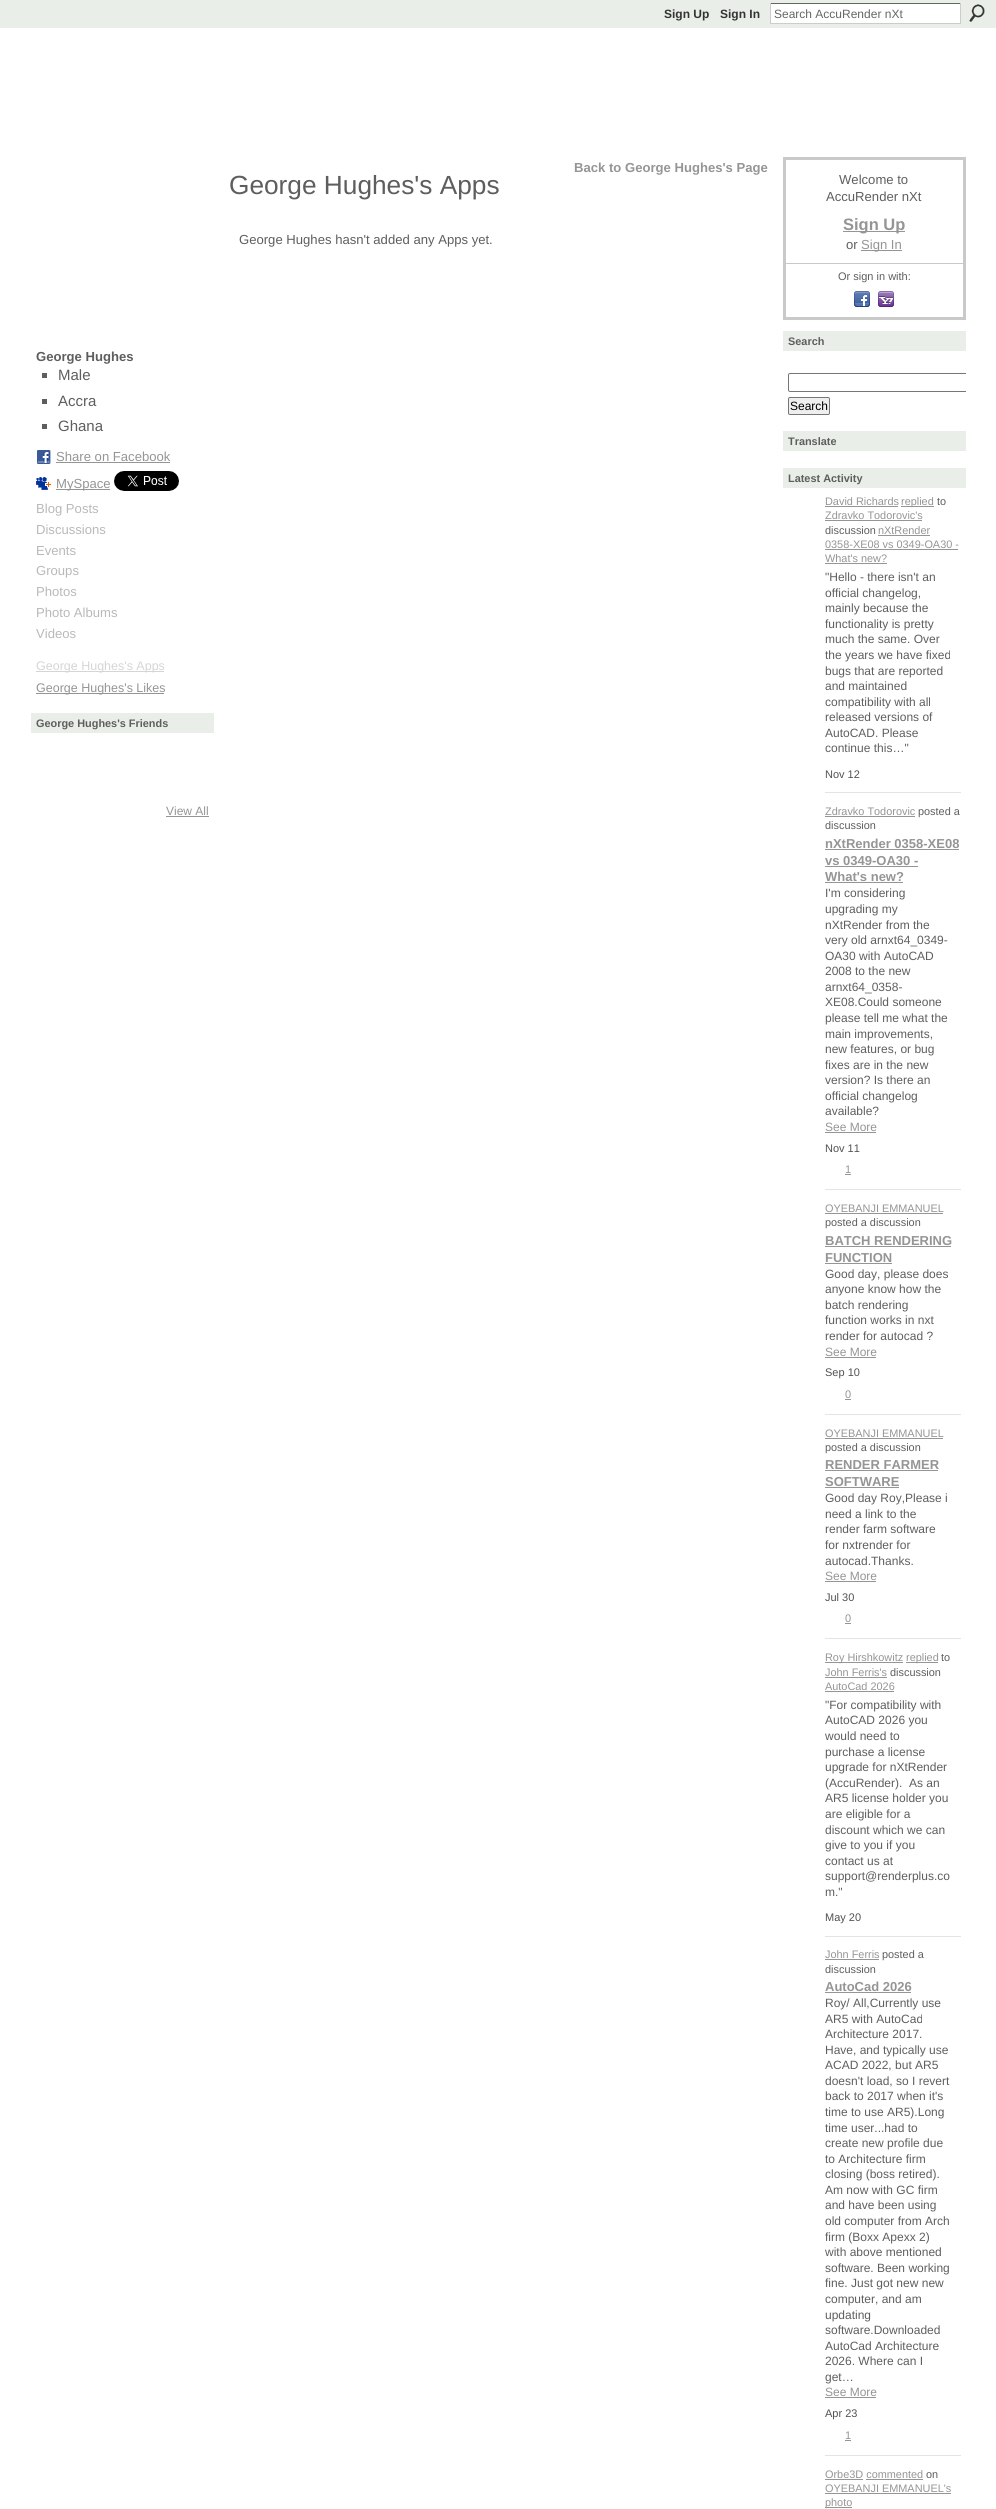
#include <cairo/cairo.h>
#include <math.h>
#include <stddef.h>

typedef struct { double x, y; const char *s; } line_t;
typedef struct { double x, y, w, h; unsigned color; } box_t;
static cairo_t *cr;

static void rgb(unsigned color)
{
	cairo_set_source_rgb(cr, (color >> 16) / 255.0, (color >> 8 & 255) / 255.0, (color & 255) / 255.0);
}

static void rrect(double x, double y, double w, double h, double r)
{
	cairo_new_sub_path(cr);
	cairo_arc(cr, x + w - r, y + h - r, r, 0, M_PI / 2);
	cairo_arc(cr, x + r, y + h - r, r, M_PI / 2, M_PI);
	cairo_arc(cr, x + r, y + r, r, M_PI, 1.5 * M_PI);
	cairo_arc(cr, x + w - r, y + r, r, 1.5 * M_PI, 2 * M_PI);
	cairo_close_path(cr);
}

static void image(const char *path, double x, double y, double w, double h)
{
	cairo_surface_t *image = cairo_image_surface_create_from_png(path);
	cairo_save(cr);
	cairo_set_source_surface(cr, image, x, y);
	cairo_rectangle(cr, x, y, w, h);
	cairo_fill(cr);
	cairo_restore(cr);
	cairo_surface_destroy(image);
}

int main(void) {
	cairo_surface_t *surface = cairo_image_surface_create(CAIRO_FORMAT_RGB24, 996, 2509);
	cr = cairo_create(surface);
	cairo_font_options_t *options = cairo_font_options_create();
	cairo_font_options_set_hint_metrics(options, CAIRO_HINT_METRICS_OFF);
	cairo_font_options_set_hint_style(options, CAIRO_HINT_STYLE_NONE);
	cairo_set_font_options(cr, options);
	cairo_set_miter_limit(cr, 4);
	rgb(0xffffff);
	cairo_paint(cr);
	{
		static const box_t items[] = {
			{0, 0, 996, 28, 0xe9eee8},
			{771, 4, 189, 19, 0xffffff},
			{770, 3, 191, 1, 0x666666},
			{960, 3, 1, 21, 0xcccccc},
			{770, 23, 191, 1, 0xcccccc},
			{770, 3, 1, 21, 0xcccccc},
		};
		for (size_t i = 0; i < sizeof items / sizeof *items; i++) {
			rgb(items[i].color);
			cairo_rectangle(cr, items[i].x, items[i].y, items[i].w, items[i].h);
			cairo_fill(cr);
		}
	}
	image("img/1.png", 969, 4, 16, 18);
	{
		static const box_t items[] = {
			{42, 373, 5, 5, 0x5e5e5e},
			{42, 399, 5, 5, 0x5e5e5e},
			{42, 424, 5, 5, 0x5e5e5e},
		};
		for (size_t i = 0; i < sizeof items / sizeof *items; i++) {
			rgb(items[i].color);
			cairo_rectangle(cr, items[i].x, items[i].y, items[i].w, items[i].h);
			cairo_fill(cr);
		}
	}
	image("img/2.png", 37, 450, 14, 14);
	rgb(0x959595);
	cairo_rectangle(cr, 56, 462, 114, 1);
	cairo_fill(cr);
	image("img/3.png", 36, 477, 15, 13);
	cairo_rectangle(cr, 56, 489, 54, 1);
	cairo_fill(cr);
	image("img/4.png", 114, 471, 65, 20);
	{
		static const box_t items[] = {
			{36, 671, 128, 1, 0xd5d5d5},
			{36, 693, 128, 1, 0x959595},
			{31, 713, 183, 20, 0xe9eee8},
			{166, 816, 43, 1, 0x959595},
		};
		for (size_t i = 0; i < sizeof items / sizeof *items; i++) {
			rgb(items[i].color);
			cairo_rectangle(cr, items[i].x, items[i].y, items[i].w, items[i].h);
			cairo_fill(cr);
		}
	}
	cairo_rectangle(cr, 784.5, 158.5, 180, 160);
	rgb(0xc9c9c9);
	cairo_set_line_width(cr, 3);
	cairo_stroke(cr);
	{
		static const box_t items[] = {
			{843, 231, 62, 1, 0x959595},
			{861, 250, 41, 1, 0x959595},
			{786, 263, 177, 1, 0xc9c9c9},
		};
		for (size_t i = 0; i < sizeof items / sizeof *items; i++) {
			rgb(items[i].color);
			cairo_rectangle(cr, items[i].x, items[i].y, items[i].w, items[i].h);
			cairo_fill(cr);
		}
	}
	image("img/5.png", 854, 291, 16, 16);
	image("img/6.png", 878, 291, 16, 16);
	rgb(0xe9eee8);
	cairo_rectangle(cr, 783, 331, 183, 20);
	cairo_fill(cr);
	cairo_save(cr);
	cairo_rectangle(cr, 783, 352, 183, 73);
	cairo_clip(cr);
	rrect(788.5, 373.5, 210, 18, 1.5);
	rgb(0x767676);
	cairo_set_line_width(cr, 1);
	cairo_stroke(cr);
	cairo_restore(cr);
	rgb(0xefefef);
	rrect(788.5, 397.5, 41, 17, 1.5);
	cairo_fill_preserve(cr);
	rgb(0x767676);
	cairo_set_line_width(cr, 1);
	cairo_stroke(cr);
	{
		static const box_t items[] = {
			{783, 431, 183, 20, 0xe9eee8},
			{783, 468, 183, 20, 0xe9eee8},
			{825, 792, 136, 1, 0xe4e4e4},
			{825, 506, 73, 1, 0x959595},
			{901, 506, 33, 1, 0x959595},
			{825, 520, 97, 1, 0x959595},
			{878, 535, 52, 1, 0x959595},
			{825, 549, 133, 1, 0x959595},
			{825, 563, 62, 1, 0x959595},
			{825, 1189, 136, 1, 0xe4e4e4},
			{825, 816, 90, 1, 0x959595},
			{825, 849, 134, 1, 0x959595},
			{825, 866, 93, 1, 0x959595},
			{825, 882, 78, 1, 0x959595},
			{825, 1132, 51, 1, 0x959595},
			{845, 1174, 6, 1, 0x959595},
			{825, 1414, 136, 1, 0xe4e4e4},
			{825, 1213, 118, 1, 0x959595},
			{825, 1246, 126, 1, 0x959595},
			{825, 1263, 67, 1, 0x959595},
			{825, 1357, 51, 1, 0x959595},
			{845, 1399, 6, 1, 0x959595},
			{825, 1638, 136, 1, 0xe4e4e4},
			{825, 1438, 118, 1, 0x959595},
			{825, 1470, 113, 1, 0x959595},
			{825, 1487, 74, 1, 0x959595},
			{825, 1581, 51, 1, 0x959595},
			{845, 1623, 6, 1, 0x959595},
			{825, 1936, 136, 1, 0xe4e4e4},
			{825, 1662, 78, 1, 0x959595},
			{906, 1662, 32, 1, 0x959595},
			{825, 1677, 62, 1, 0x959595},
			{825, 1691, 69, 1, 0x959595},
			{825, 2455, 136, 1, 0xe4e4e4},
			{825, 1959, 54, 1, 0x959595},
			{825, 1992, 86, 1, 0x959595},
			{825, 2397, 51, 1, 0x959595},
			{845, 2440, 6, 1, 0x959595},
			{825, 2479, 38, 1, 0x959595},
			{866, 2479, 57, 1, 0x959595},
			{825, 2493, 126, 1, 0x959595},
			{825, 2507, 27, 1, 0x959595},
		};
		for (size_t i = 0; i < sizeof items / sizeof *items; i++) {
			rgb(items[i].color);
			cairo_rectangle(cr, items[i].x, items[i].y, items[i].w, items[i].h);
			cairo_fill(cr);
		}
	}
	cairo_select_font_face(cr, "Liberation Sans", CAIRO_FONT_SLANT_NORMAL, CAIRO_FONT_WEIGHT_BOLD);
	cairo_set_font_size(cr, 12);
	rgb(0x333333);
	cairo_move_to(cr, 664, 18);
	cairo_show_text(cr, "Sign Up");
	cairo_move_to(cr, 720, 18);
	cairo_show_text(cr, "Sign In");
	cairo_select_font_face(cr, "Liberation Sans", CAIRO_FONT_SLANT_NORMAL, CAIRO_FONT_WEIGHT_NORMAL);
	rgb(0x666666);
	cairo_move_to(cr, 774, 18);
	cairo_show_text(cr, "Search AccuRender nXt");
	cairo_select_font_face(cr, "Liberation Sans", CAIRO_FONT_SLANT_NORMAL, CAIRO_FONT_WEIGHT_BOLD);
	cairo_set_font_size(cr, 13.1);
	rgb(0x959595);
	cairo_move_to(cr, 574, 172);
	cairo_show_text(cr, "Back to George Hughes's Page");
	cairo_select_font_face(cr, "Liberation Sans", CAIRO_FONT_SLANT_NORMAL, CAIRO_FONT_WEIGHT_NORMAL);
	cairo_set_font_size(cr, 26.25);
	rgb(0x5e5e5e);
	cairo_move_to(cr, 229, 194);
	cairo_show_text(cr, "George Hughes's Apps");
	cairo_set_font_size(cr, 13.1);
	cairo_move_to(cr, 239, 244);
	cairo_show_text(cr, "George Hughes hasn't added any Apps yet.");
	cairo_select_font_face(cr, "Liberation Sans", CAIRO_FONT_SLANT_NORMAL, CAIRO_FONT_WEIGHT_BOLD);
	cairo_move_to(cr, 36, 361);
	cairo_show_text(cr, "George Hughes");
	cairo_select_font_face(cr, "Liberation Sans", CAIRO_FONT_SLANT_NORMAL, CAIRO_FONT_WEIGHT_NORMAL);
	cairo_set_font_size(cr, 15);
	{
		static const line_t items[] = {
			{58, 380, "Male"},
			{58, 406, "Accra"},
			{58, 431, "Ghana"},
		};
		for (size_t i = 0; i < sizeof items / sizeof *items; i++) {
			cairo_move_to(cr, items[i].x, items[i].y);
			cairo_show_text(cr, items[i].s);
		}
	}
	cairo_set_font_size(cr, 13.1);
	rgb(0x959595);
	cairo_move_to(cr, 56, 461);
	cairo_show_text(cr, "Share on Facebook");
	cairo_move_to(cr, 56, 488);
	cairo_show_text(cr, "MySpace");
	rgb(0xb9b9b9);
	{
		static const line_t items[] = {
			{36, 513, "Blog Posts"},
			{36, 534, "Discussions"},
			{36, 555, "Events"},
			{36, 575, "Groups"},
			{36, 596, "Photos"},
			{36, 617, "Photo Albums"},
			{36, 638, "Videos"},
		};
		for (size_t i = 0; i < sizeof items / sizeof *items; i++) {
			cairo_move_to(cr, items[i].x, items[i].y);
			cairo_show_text(cr, items[i].s);
		}
	}
	cairo_set_font_size(cr, 12.5);
	rgb(0xd5d5d5);
	cairo_move_to(cr, 36, 670);
	cairo_show_text(cr, "George Hughes's Apps");
	rgb(0x959595);
	cairo_move_to(cr, 36, 692);
	cairo_show_text(cr, "George Hughes's Likes");
	cairo_select_font_face(cr, "Liberation Sans", CAIRO_FONT_SLANT_NORMAL, CAIRO_FONT_WEIGHT_BOLD);
	cairo_set_font_size(cr, 10.9);
	rgb(0x5e5e5e);
	cairo_move_to(cr, 36, 727);
	cairo_show_text(cr, "George Hughes's Friends");
	cairo_select_font_face(cr, "Liberation Sans", CAIRO_FONT_SLANT_NORMAL, CAIRO_FONT_WEIGHT_NORMAL);
	cairo_set_font_size(cr, 12);
	rgb(0x959595);
	cairo_move_to(cr, 166, 815);
	cairo_show_text(cr, "View All");
	cairo_set_font_size(cr, 13.1);
	rgb(0x5e5e5e);
	cairo_move_to(cr, 839, 184);
	cairo_show_text(cr, "Welcome to");
	cairo_move_to(cr, 826, 201);
	cairo_show_text(cr, "AccuRender nXt");
	cairo_select_font_face(cr, "Liberation Sans", CAIRO_FONT_SLANT_NORMAL, CAIRO_FONT_WEIGHT_BOLD);
	cairo_set_font_size(cr, 16.5);
	rgb(0x959595);
	cairo_move_to(cr, 843, 230);
	cairo_show_text(cr, "Sign Up");
	cairo_select_font_face(cr, "Liberation Sans", CAIRO_FONT_SLANT_NORMAL, CAIRO_FONT_WEIGHT_NORMAL);
	cairo_set_font_size(cr, 13.1);
	rgb(0x5e5e5e);
	cairo_move_to(cr, 846, 249);
	cairo_show_text(cr, "or");
	rgb(0x959595);
	cairo_move_to(cr, 861, 249);
	cairo_show_text(cr, "Sign In");
	cairo_set_font_size(cr, 11);
	rgb(0x5e5e5e);
	cairo_move_to(cr, 838, 280);
	cairo_show_text(cr, "Or sign in with:");
	cairo_select_font_face(cr, "Liberation Sans", CAIRO_FONT_SLANT_NORMAL, CAIRO_FONT_WEIGHT_BOLD);
	cairo_set_font_size(cr, 10.9);
	cairo_move_to(cr, 788, 345);
	cairo_show_text(cr, "Search");
	cairo_select_font_face(cr, "Liberation Sans", CAIRO_FONT_SLANT_NORMAL, CAIRO_FONT_WEIGHT_NORMAL);
	cairo_set_font_size(cr, 12);
	rgb(0x000000);
	cairo_move_to(cr, 790, 410);
	cairo_show_text(cr, "Search");
	cairo_select_font_face(cr, "Liberation Sans", CAIRO_FONT_SLANT_NORMAL, CAIRO_FONT_WEIGHT_BOLD);
	cairo_set_font_size(cr, 10.9);
	rgb(0x5e5e5e);
	cairo_move_to(cr, 788, 445);
	cairo_show_text(cr, "Translate");
	cairo_move_to(cr, 788, 482);
	cairo_show_text(cr, "Latest Activity");
	cairo_select_font_face(cr, "Liberation Sans", CAIRO_FONT_SLANT_NORMAL, CAIRO_FONT_WEIGHT_NORMAL);
	rgb(0x959595);
	cairo_move_to(cr, 825, 505);
	cairo_show_text(cr, "David Richards");
	cairo_move_to(cr, 901, 505);
	cairo_show_text(cr, "replied");
	rgb(0x5e5e5e);
	cairo_move_to(cr, 937, 505);
	cairo_show_text(cr, "to");
	rgb(0x959595);
	cairo_move_to(cr, 825, 519);
	cairo_show_text(cr, "Zdravko Todorovic's");
	rgb(0x5e5e5e);
	cairo_move_to(cr, 825, 534);
	cairo_show_text(cr, "discussion");
	rgb(0x959595);
	{
		static const line_t items[] = {
			{878, 534, "nXtRender"},
			{825, 548, "0358-XE08 vs 0349-OA30 -"},
			{825, 562, "What's new?"},
		};
		for (size_t i = 0; i < sizeof items / sizeof *items; i++) {
			cairo_move_to(cr, items[i].x, items[i].y);
			cairo_show_text(cr, items[i].s);
		}
	}
	cairo_set_font_size(cr, 12);
	rgb(0x5e5e5e);
	{
		static const line_t items[] = {
			{825, 581, "\"Hello - there isn't an"},
			{825, 597, "official changelog,"},
			{825, 612, "mainly because the"},
			{825, 628, "functionality is pretty"},
			{825, 643, "much the same. Over"},
			{825, 659, "the years we have fixed"},
			{825, 675, "bugs that are reported"},
			{825, 690, "and maintained"},
			{825, 706, "compatibility with all"},
			{825, 721, "released versions of"},
			{825, 737, "AutoCAD. Please"},
			{825, 752, "continue this…\""},
		};
		for (size_t i = 0; i < sizeof items / sizeof *items; i++) {
			cairo_move_to(cr, items[i].x, items[i].y);
			cairo_show_text(cr, items[i].s);
		}
	}
	cairo_set_font_size(cr, 11);
	rgb(0x515151);
	cairo_move_to(cr, 825, 778);
	cairo_show_text(cr, "Nov 12");
	cairo_set_font_size(cr, 10.9);
	rgb(0x959595);
	cairo_move_to(cr, 825, 815);
	cairo_show_text(cr, "Zdravko Todorovic");
	rgb(0x5e5e5e);
	cairo_move_to(cr, 918, 815);
	cairo_show_text(cr, "posted a");
	cairo_move_to(cr, 825, 829);
	cairo_show_text(cr, "discussion");
	cairo_select_font_face(cr, "Liberation Sans", CAIRO_FONT_SLANT_NORMAL, CAIRO_FONT_WEIGHT_BOLD);
	cairo_set_font_size(cr, 13);
	rgb(0x959595);
	{
		static const line_t items[] = {
			{825, 848, "nXtRender 0358-XE08"},
			{825, 865, "vs 0349-OA30 -"},
			{825, 881, "What's new?"},
		};
		for (size_t i = 0; i < sizeof items / sizeof *items; i++) {
			cairo_move_to(cr, items[i].x, items[i].y);
			cairo_show_text(cr, items[i].s);
		}
	}
	cairo_select_font_face(cr, "Liberation Sans", CAIRO_FONT_SLANT_NORMAL, CAIRO_FONT_WEIGHT_NORMAL);
	cairo_set_font_size(cr, 12);
	rgb(0x5e5e5e);
	{
		static const line_t items[] = {
			{825, 897, "I'm considering"},
			{825, 913, "upgrading my"},
			{825, 929, "nXtRender from the"},
			{825, 944, "very old arnxt64_0349-"},
			{825, 960, "OA30 with AutoCAD"},
			{825, 975, "2008 to the new"},
			{825, 991, "arnxt64_0358-"},
			{825, 1006, "XE08.Could someone"},
			{825, 1022, "please tell me what the"},
			{825, 1038, "main improvements,"},
			{825, 1053, "new features, or bug"},
			{825, 1069, "fixes are in the new"},
			{825, 1084, "version? Is there an"},
			{825, 1100, "official changelog"},
			{825, 1115, "available?"},
		};
		for (size_t i = 0; i < sizeof items / sizeof *items; i++) {
			cairo_move_to(cr, items[i].x, items[i].y);
			cairo_show_text(cr, items[i].s);
		}
	}
	rgb(0x959595);
	cairo_move_to(cr, 825, 1131);
	cairo_show_text(cr, "See More");
	cairo_set_font_size(cr, 11);
	rgb(0x515151);
	cairo_move_to(cr, 825, 1152);
	cairo_show_text(cr, "Nov 11");
	rgb(0x959595);
	cairo_move_to(cr, 845, 1173);
	cairo_show_text(cr, "1");
	cairo_set_font_size(cr, 10.9);
	cairo_move_to(cr, 825, 1212);
	cairo_show_text(cr, "OYEBANJI EMMANUEL");
	rgb(0x5e5e5e);
	cairo_move_to(cr, 825, 1226);
	cairo_show_text(cr, "posted a discussion");
	cairo_select_font_face(cr, "Liberation Sans", CAIRO_FONT_SLANT_NORMAL, CAIRO_FONT_WEIGHT_BOLD);
	cairo_set_font_size(cr, 13);
	rgb(0x959595);
	cairo_move_to(cr, 825, 1245);
	cairo_show_text(cr, "BATCH RENDERING");
	cairo_move_to(cr, 825, 1262);
	cairo_show_text(cr, "FUNCTION");
	cairo_select_font_face(cr, "Liberation Sans", CAIRO_FONT_SLANT_NORMAL, CAIRO_FONT_WEIGHT_NORMAL);
	cairo_set_font_size(cr, 12);
	rgb(0x5e5e5e);
	{
		static const line_t items[] = {
			{825, 1278, "Good day, please does"},
			{825, 1293, "anyone know how the"},
			{825, 1309, "batch rendering"},
			{825, 1324, "function works in nxt"},
			{825, 1340, "render for autocad ?"},
		};
		for (size_t i = 0; i < sizeof items / sizeof *items; i++) {
			cairo_move_to(cr, items[i].x, items[i].y);
			cairo_show_text(cr, items[i].s);
		}
	}
	rgb(0x959595);
	cairo_move_to(cr, 825, 1356);
	cairo_show_text(cr, "See More");
	cairo_set_font_size(cr, 11);
	rgb(0x515151);
	cairo_move_to(cr, 825, 1376);
	cairo_show_text(cr, "Sep 10");
	rgb(0x959595);
	cairo_move_to(cr, 845, 1398);
	cairo_show_text(cr, "0");
	cairo_set_font_size(cr, 10.9);
	cairo_move_to(cr, 825, 1437);
	cairo_show_text(cr, "OYEBANJI EMMANUEL");
	rgb(0x5e5e5e);
	cairo_move_to(cr, 825, 1451);
	cairo_show_text(cr, "posted a discussion");
	cairo_select_font_face(cr, "Liberation Sans", CAIRO_FONT_SLANT_NORMAL, CAIRO_FONT_WEIGHT_BOLD);
	cairo_set_font_size(cr, 13);
	rgb(0x959595);
	cairo_move_to(cr, 825, 1469);
	cairo_show_text(cr, "RENDER FARMER");
	cairo_move_to(cr, 825, 1486);
	cairo_show_text(cr, "SOFTWARE");
	cairo_select_font_face(cr, "Liberation Sans", CAIRO_FONT_SLANT_NORMAL, CAIRO_FONT_WEIGHT_NORMAL);
	cairo_set_font_size(cr, 12);
	rgb(0x5e5e5e);
	{
		static const line_t items[] = {
			{825, 1502, "Good day Roy,Please i"},
			{825, 1518, "need a link to the"},
			{825, 1533, "render farm software"},
			{825, 1549, "for nxtrender for"},
			{825, 1565, "autocad.Thanks."},
		};
		for (size_t i = 0; i < sizeof items / sizeof *items; i++) {
			cairo_move_to(cr, items[i].x, items[i].y);
			cairo_show_text(cr, items[i].s);
		}
	}
	rgb(0x959595);
	cairo_move_to(cr, 825, 1580);
	cairo_show_text(cr, "See More");
	cairo_set_font_size(cr, 11);
	rgb(0x515151);
	cairo_move_to(cr, 825, 1601);
	cairo_show_text(cr, "Jul 30");
	rgb(0x959595);
	cairo_move_to(cr, 845, 1622);
	cairo_show_text(cr, "0");
	cairo_set_font_size(cr, 10.9);
	cairo_move_to(cr, 825, 1661);
	cairo_show_text(cr, "Roy Hirshkowitz");
	cairo_move_to(cr, 906, 1661);
	cairo_show_text(cr, "replied");
	rgb(0x5e5e5e);
	cairo_move_to(cr, 941, 1661);
	cairo_show_text(cr, "to");
	rgb(0x959595);
	cairo_move_to(cr, 825, 1676);
	cairo_show_text(cr, "John Ferris's");
	rgb(0x5e5e5e);
	cairo_move_to(cr, 890, 1676);
	cairo_show_text(cr, "discussion");
	rgb(0x959595);
	cairo_move_to(cr, 825, 1690);
	cairo_show_text(cr, "AutoCad 2026");
	cairo_set_font_size(cr, 12);
	rgb(0x5e5e5e);
	{
		static const line_t items[] = {
			{825, 1709, "\"For compatibility with"},
			{825, 1724, "AutoCAD 2026 you"},
			{825, 1740, "would need to"},
			{825, 1756, "purchase a license"},
			{825, 1771, "upgrade for nXtRender"},
			{825, 1787, "(AccuRender).  As an"},
			{825, 1802, "AR5 license holder you"},
			{825, 1818, "are eligible for a"},
			{825, 1834, "discount which we can"},
			{825, 1849, "give to you if you"},
			{825, 1865, "contact us at"},
			{825, 1880, "support@renderplus.co"},
			{825, 1896, "m.\""},
		};
		for (size_t i = 0; i < sizeof items / sizeof *items; i++) {
			cairo_move_to(cr, items[i].x, items[i].y);
			cairo_show_text(cr, items[i].s);
		}
	}
	cairo_set_font_size(cr, 11);
	rgb(0x515151);
	cairo_move_to(cr, 825, 1921);
	cairo_show_text(cr, "May 20");
	cairo_set_font_size(cr, 10.9);
	rgb(0x959595);
	cairo_move_to(cr, 825, 1958);
	cairo_show_text(cr, "John Ferris");
	rgb(0x5e5e5e);
	cairo_move_to(cr, 882, 1958);
	cairo_show_text(cr, "posted a");
	cairo_move_to(cr, 825, 1973);
	cairo_show_text(cr, "discussion");
	cairo_select_font_face(cr, "Liberation Sans", CAIRO_FONT_SLANT_NORMAL, CAIRO_FONT_WEIGHT_BOLD);
	cairo_set_font_size(cr, 13);
	rgb(0x959595);
	cairo_move_to(cr, 825, 1991);
	cairo_show_text(cr, "AutoCad 2026");
	cairo_select_font_face(cr, "Liberation Sans", CAIRO_FONT_SLANT_NORMAL, CAIRO_FONT_WEIGHT_NORMAL);
	cairo_set_font_size(cr, 12);
	rgb(0x5e5e5e);
	{
		static const line_t items[] = {
			{825, 2007, "Roy/ All,Currently use"},
			{825, 2023, "AR5 with AutoCad"},
			{825, 2038, "Architecture 2017."},
			{825, 2054, "Have, and typically use"},
			{825, 2069, "ACAD 2022, but AR5"},
			{825, 2085, "doesn't load, so I revert"},
			{825, 2100, "back to 2017 when it's"},
			{825, 2116, "time to use AR5).Long"},
			{825, 2132, "time user...had to"},
			{825, 2147, "create new profile due"},
			{825, 2163, "to Architecture firm"},
			{825, 2178, "closing (boss retired)."},
			{825, 2194, "Am now with GC firm"},
			{825, 2209, "and have been using"},
			{825, 2225, "old computer from Arch"},
			{825, 2241, "firm (Boxx Apexx 2)"},
			{825, 2256, "with above mentioned"},
			{825, 2272, "software. Been working"},
			{825, 2287, "fine. Just got new new"},
			{825, 2303, "computer, and am"},
			{825, 2319, "updating"},
			{825, 2334, "software.Downloaded"},
			{825, 2350, "AutoCad Architecture"},
			{825, 2365, "2026. Where can I"},
			{825, 2381, "get…"},
		};
		for (size_t i = 0; i < sizeof items / sizeof *items; i++) {
			cairo_move_to(cr, items[i].x, items[i].y);
			cairo_show_text(cr, items[i].s);
		}
	}
	rgb(0x959595);
	cairo_move_to(cr, 825, 2396);
	cairo_show_text(cr, "See More");
	cairo_set_font_size(cr, 11);
	rgb(0x515151);
	cairo_move_to(cr, 825, 2417);
	cairo_show_text(cr, "Apr 23");
	rgb(0x959595);
	cairo_move_to(cr, 845, 2439);
	cairo_show_text(cr, "1");
	cairo_set_font_size(cr, 10.9);
	cairo_move_to(cr, 825, 2478);
	cairo_show_text(cr, "Orbe3D commented");
	rgb(0x5e5e5e);
	cairo_move_to(cr, 926, 2478);
	cairo_show_text(cr, "on");
	rgb(0x959595);
	cairo_move_to(cr, 825, 2492);
	cairo_show_text(cr, "OYEBANJI EMMANUEL's");
	cairo_move_to(cr, 825, 2506);
	cairo_show_text(cr, "photo");
	cairo_surface_write_to_png(surface, "page.png");
	cairo_font_options_destroy(options);
	cairo_destroy(cr);
	cairo_surface_destroy(surface);
	return 0;
}
